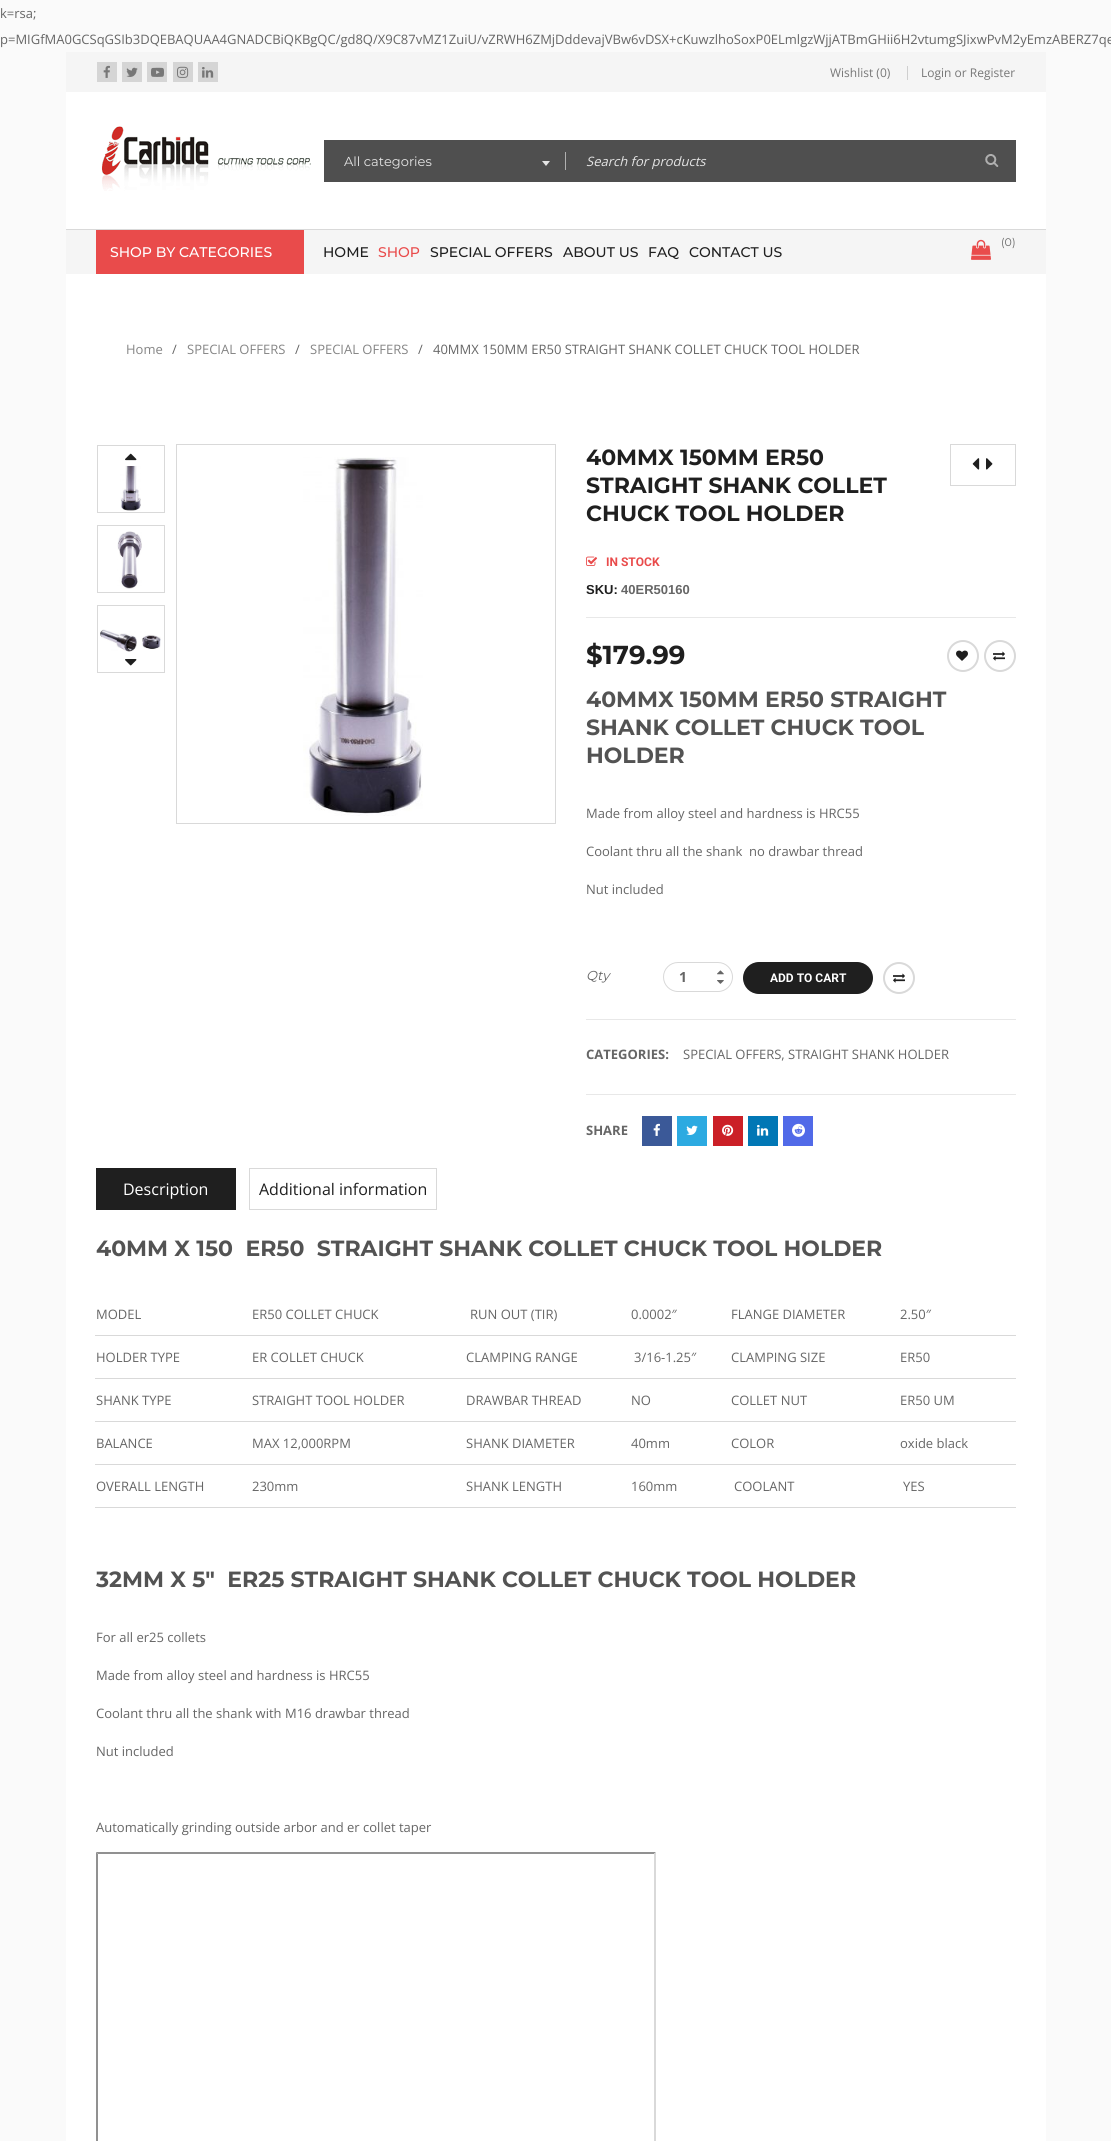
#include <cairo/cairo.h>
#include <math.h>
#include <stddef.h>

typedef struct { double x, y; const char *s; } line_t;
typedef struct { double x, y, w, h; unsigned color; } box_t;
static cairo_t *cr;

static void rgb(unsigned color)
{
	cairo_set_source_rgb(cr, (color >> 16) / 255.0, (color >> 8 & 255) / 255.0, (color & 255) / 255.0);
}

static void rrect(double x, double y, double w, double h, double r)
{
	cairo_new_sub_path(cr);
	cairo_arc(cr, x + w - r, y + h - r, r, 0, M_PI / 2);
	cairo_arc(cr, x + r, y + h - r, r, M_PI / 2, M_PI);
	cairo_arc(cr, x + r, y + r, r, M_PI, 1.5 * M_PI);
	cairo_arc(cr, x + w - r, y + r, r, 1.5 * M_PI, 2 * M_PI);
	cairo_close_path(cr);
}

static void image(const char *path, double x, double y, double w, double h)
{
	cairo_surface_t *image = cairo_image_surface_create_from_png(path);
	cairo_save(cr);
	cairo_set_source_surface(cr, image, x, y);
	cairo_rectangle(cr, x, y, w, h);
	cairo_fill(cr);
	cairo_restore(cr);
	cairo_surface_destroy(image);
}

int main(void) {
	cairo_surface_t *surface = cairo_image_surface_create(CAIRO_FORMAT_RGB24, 1111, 2141);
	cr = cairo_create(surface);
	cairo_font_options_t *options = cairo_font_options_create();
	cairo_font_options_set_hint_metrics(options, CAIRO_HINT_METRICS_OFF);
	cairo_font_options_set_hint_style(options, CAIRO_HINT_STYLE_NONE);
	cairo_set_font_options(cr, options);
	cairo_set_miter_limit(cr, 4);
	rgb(0xfafafa);
	cairo_paint(cr);
	{
		static const box_t items[] = {
			{66, 92, 980, 137, 0xffffff},
			{66, 52, 980, 40, 0xf5f5f5},
			{97, 62, 20, 20, 0xd5d5d5},
		};
		for (size_t i = 0; i < sizeof items / sizeof *items; i++) {
			rgb(items[i].color);
			cairo_rectangle(cr, items[i].x, items[i].y, items[i].w, items[i].h);
			cairo_fill(cr);
		}
	}
	image("img/1.png", 103, 65, 7, 13);
	cairo_rectangle(cr, 122, 62, 20, 20);
	cairo_fill(cr);
	image("img/2.png", 126, 67, 12, 10);
	cairo_rectangle(cr, 147, 62, 20, 20);
	cairo_fill(cr);
	image("img/3.png", 151, 67, 13, 10);
	cairo_rectangle(cr, 173, 62, 20, 20);
	cairo_fill(cr);
	image("img/4.png", 177, 66, 12, 12);
	cairo_rectangle(cr, 198, 62, 20, 20);
	cairo_fill(cr);
	image("img/5.png", 202, 67, 12, 11);
	rgb(0xcfcfcf);
	cairo_rectangle(cr, 907, 66, 1, 14);
	cairo_fill(cr);
	image("img/6.png", 101, 126, 210, 65);
	rgb(0x4f4f4f);
	cairo_rectangle(cr, 324, 140, 692, 42);
	cairo_fill(cr);
	rgb(0xb0b0b0);
	cairo_rectangle(cr, 565, 152, 1, 18);
	cairo_fill(cr);
	rgb(0xe5e5e5);
	cairo_new_path(cr);
	cairo_move_to(cr, 542, 161);
	cairo_line_to(cr, 550, 161);
	cairo_line_to(cr, 546, 166);
	cairo_close_path(cr);
	cairo_fill(cr);
	image("img/7.png", 985, 154, 14, 13);
	rgb(0xf5f5f5);
	cairo_rectangle(cr, 66, 230, 980, 44);
	cairo_fill(cr);
	rgb(0xd9d9d9);
	cairo_rectangle(cr, 66, 229, 980, 1);
	cairo_fill(cr);
	image("img/8.png", 971, 239, 20, 21);
	rgb(0xe94b4b);
	cairo_rectangle(cr, 96, 230, 208, 44);
	cairo_fill(cr);
	rgb(0xffffff);
	cairo_rectangle(cr, 66, 274, 980, 1867);
	cairo_fill(cr);
	cairo_rectangle(cr, 97.5, 445.5, 67, 67);
	rgb(0xd9d9d9);
	cairo_set_line_width(cr, 1);
	cairo_stroke(cr);
	image("img/9.png", 120, 466, 21, 45);
	cairo_rectangle(cr, 97.5, 525.5, 67, 67);
	cairo_stroke(cr);
	image("img/10.png", 117, 531, 25, 58);
	cairo_rectangle(cr, 97.5, 605.5, 67, 67);
	cairo_stroke(cr);
	image("img/11.png", 100, 629, 61, 23);
	image("img/12.png", 125, 453, 12, 8);
	image("img/13.png", 125, 659, 12, 7);
	cairo_rectangle(cr, 176.5, 444.5, 379, 379);
	cairo_stroke(cr);
	image("img/14.png", 303, 457, 120, 359);
	cairo_rectangle(cr, 950.5, 444.5, 65, 41);
	cairo_stroke(cr);
	image("img/15.png", 972, 458, 8, 12);
	image("img/16.png", 986, 458, 7, 12);
	image("img/17.png", 586, 556, 12, 10);
	rgb(0xe8e8e8);
	cairo_rectangle(cr, 586, 617, 430, 1);
	cairo_fill(cr);
	cairo_arc(cr, 963, 656, 15, 0, 2 * M_PI);
	rgb(0xd9d9d9);
	cairo_set_line_width(cr, 2);
	cairo_stroke(cr);
	image("img/18.png", 956, 650, 12, 11);
	cairo_arc(cr, 1000, 656, 15, 0, 2 * M_PI);
	cairo_stroke(cr);
	image("img/19.png", 993, 651, 12, 10);
	rrect(663.5, 962.5, 69, 29, 14.5);
	cairo_set_line_width(cr, 1);
	cairo_stroke(cr);
	image("img/20.png", 717, 970, 7, 5);
	image("img/21.png", 717, 980, 7, 4);
	rgb(0x1f1f1f);
	rrect(744, 963, 128, 30, 15);
	cairo_fill_preserve(cr);
	cairo_set_line_width(cr, 2);
	cairo_stroke(cr);
	cairo_arc(cr, 899, 978, 15, 0, 2 * M_PI);
	rgb(0xd9d9d9);
	cairo_stroke(cr);
	image("img/19.png", 893, 973, 12, 10);
	{
		static const box_t items[] = {
			{586, 1019, 430, 1, 0xe8e8e8},
			{586, 1094, 430, 1, 0xe8e8e8},
			{642, 1116, 30, 30, 0x3b5998},
		};
		for (size_t i = 0; i < sizeof items / sizeof *items; i++) {
			rgb(items[i].color);
			cairo_rectangle(cr, items[i].x, items[i].y, items[i].w, items[i].h);
			cairo_fill(cr);
		}
	}
	image("img/22.png", 653, 1123, 7, 13);
	rgb(0x2caae1);
	cairo_rectangle(cr, 677, 1116, 30, 30);
	cairo_fill(cr);
	image("img/23.png", 686, 1125, 12, 10);
	rgb(0xcb2027);
	cairo_rectangle(cr, 713, 1116, 30, 30);
	cairo_fill(cr);
	image("img/24.png", 722, 1124, 12, 12);
	rgb(0x0177b5);
	cairo_rectangle(cr, 748, 1116, 30, 30);
	cairo_fill(cr);
	image("img/25.png", 757, 1124, 12, 12);
	rgb(0x516ae8);
	cairo_rectangle(cr, 783, 1116, 30, 30);
	cairo_fill(cr);
	image("img/26.png", 792, 1123, 13, 14);
	rgb(0x1f1f1f);
	cairo_rectangle(cr, 96, 1168, 140, 42);
	cairo_fill(cr);
	cairo_rectangle(cr, 249.5, 1168.5, 187, 41);
	rgb(0xd9d9d9);
	cairo_set_line_width(cr, 1);
	cairo_stroke(cr);
	{
		static const box_t items[] = {
			{95, 1335, 921, 1, 0xd9d9d9},
			{95, 1378, 921, 1, 0xd9d9d9},
			{95, 1421, 921, 1, 0xd9d9d9},
			{95, 1464, 921, 1, 0xd9d9d9},
			{95, 1507, 921, 1, 0xd9d9d9},
		};
		for (size_t i = 0; i < sizeof items / sizeof *items; i++) {
			rgb(items[i].color);
			cairo_rectangle(cr, items[i].x, items[i].y, items[i].w, items[i].h);
			cairo_fill(cr);
		}
	}
	rgb(0x919191);
	cairo_new_path(cr);
	cairo_move_to(cr, 96, 1852);
	cairo_line_to(cr, 656, 1852);
	cairo_line_to(cr, 654, 1854);
	cairo_line_to(cr, 98, 1854);
	cairo_close_path(cr);
	cairo_fill(cr);
	cairo_new_path(cr);
	cairo_move_to(cr, 96, 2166);
	cairo_line_to(cr, 96, 1852);
	cairo_line_to(cr, 98, 1854);
	cairo_line_to(cr, 98, 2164);
	cairo_close_path(cr);
	cairo_fill(cr);
	rgb(0xd9d9d9);
	cairo_new_path(cr);
	cairo_move_to(cr, 656, 1852);
	cairo_line_to(cr, 656, 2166);
	cairo_line_to(cr, 654, 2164);
	cairo_line_to(cr, 654, 1854);
	cairo_close_path(cr);
	cairo_fill(cr);
	cairo_select_font_face(cr, "Open Sans", CAIRO_FONT_SLANT_NORMAL, CAIRO_FONT_WEIGHT_NORMAL);
	cairo_set_font_size(cr, 13);
	rgb(0x666666);
	cairo_move_to(cr, 0, 18);
	cairo_show_text(cr, "k=rsa;");
	cairo_move_to(cr, 0, 44);
	cairo_show_text(cr, "p=MIGfMA0GCSqGSIb3DQEBAQUAA4GNADCBiQKBgQC/gd8Q/X9C87vMZ1ZuiU/vZRWH6ZMjDddevajVBw6vDSX+cKuwzlhoSoxP0ELmlgzWjjATBmGHii6H2vtumgSJixwPvM2yEmzABERZ7qe");
	cairo_set_font_size(cr, 12);
	rgb(0x777777);
	cairo_move_to(cr, 830, 77);
	cairo_show_text(cr, "Wishlist (0)");
	cairo_move_to(cr, 921, 77);
	cairo_show_text(cr, "Login or Register");
	cairo_select_font_face(cr, "Montserrat", CAIRO_FONT_SLANT_NORMAL, CAIRO_FONT_WEIGHT_NORMAL);
	cairo_set_font_size(cr, 13);
	rgb(0xe5e5e5);
	cairo_move_to(cr, 344, 166);
	cairo_show_text(cr, "All categories");
	cairo_select_font_face(cr, "Open Sans", CAIRO_FONT_SLANT_ITALIC, CAIRO_FONT_WEIGHT_NORMAL);
	cairo_move_to(cr, 586, 166);
	cairo_show_text(cr, "Search for products");
	cairo_select_font_face(cr, "Montserrat", CAIRO_FONT_SLANT_NORMAL, CAIRO_FONT_WEIGHT_NORMAL);
	cairo_set_font_size(cr, 11);
	rgb(0x666666);
	cairo_move_to(cr, 1001, 246);
	cairo_show_text(cr, "(0)");
	cairo_select_font_face(cr, "Montserrat Medium", CAIRO_FONT_SLANT_NORMAL, CAIRO_FONT_WEIGHT_NORMAL);
	cairo_set_font_size(cr, 14);
	rgb(0xffffff);
	cairo_move_to(cr, 110, 257);
	cairo_show_text(cr, "SHOP BY CATEGORIES");
	rgb(0x1f1f1f);
	cairo_move_to(cr, 323, 257);
	cairo_show_text(cr, "HOME");
	rgb(0xe94b4b);
	cairo_move_to(cr, 378, 257);
	cairo_show_text(cr, "SHOP");
	rgb(0x1f1f1f);
	{
		static const line_t items[] = {
			{430, 257, "SPECIAL OFFERS"},
			{563, 257, "ABOUT US"},
			{648, 257, "FAQ"},
			{689, 257, "CONTACT US"},
		};
		for (size_t i = 0; i < sizeof items / sizeof *items; i++) {
			cairo_move_to(cr, items[i].x, items[i].y);
			cairo_show_text(cr, items[i].s);
		}
	}
	cairo_select_font_face(cr, "Open Sans", CAIRO_FONT_SLANT_NORMAL, CAIRO_FONT_WEIGHT_NORMAL);
	cairo_set_font_size(cr, 13);
	rgb(0x858585);
	cairo_move_to(cr, 126, 354);
	cairo_show_text(cr, "Home");
	rgb(0x666666);
	cairo_move_to(cr, 172, 354);
	cairo_show_text(cr, "/");
	rgb(0x858585);
	cairo_move_to(cr, 187, 354);
	cairo_show_text(cr, "SPECIAL OFFERS");
	rgb(0x666666);
	cairo_move_to(cr, 295, 354);
	cairo_show_text(cr, "/");
	rgb(0x858585);
	cairo_move_to(cr, 310, 354);
	cairo_show_text(cr, "SPECIAL OFFERS");
	rgb(0x666666);
	cairo_move_to(cr, 418, 354);
	cairo_show_text(cr, "/");
	cairo_move_to(cr, 433, 354);
	cairo_show_text(cr, "40MMX 150MM ER50 STRAIGHT SHANK COLLET CHUCK TOOL HOLDER");
	cairo_select_font_face(cr, "Montserrat", CAIRO_FONT_SLANT_NORMAL, CAIRO_FONT_WEIGHT_BOLD);
	cairo_set_font_size(cr, 22);
	rgb(0x1f1f1f);
	{
		static const line_t items[] = {
			{586, 465, "40MMX 150MM ER50"},
			{586, 493, "STRAIGHT SHANK COLLET"},
			{586, 521, "CHUCK TOOL HOLDER"},
		};
		for (size_t i = 0; i < sizeof items / sizeof *items; i++) {
			cairo_move_to(cr, items[i].x, items[i].y);
			cairo_show_text(cr, items[i].s);
		}
	}
	cairo_select_font_face(cr, "Roboto", CAIRO_FONT_SLANT_NORMAL, CAIRO_FONT_WEIGHT_BOLD);
	cairo_set_font_size(cr, 12);
	rgb(0xe94b4b);
	cairo_move_to(cr, 606, 566);
	cairo_show_text(cr, "IN STOCK");
	cairo_select_font_face(cr, "Liberation Sans", CAIRO_FONT_SLANT_NORMAL, CAIRO_FONT_WEIGHT_BOLD);
	cairo_set_font_size(cr, 13);
	rgb(0x1f1f1f);
	cairo_move_to(cr, 586, 594);
	cairo_show_text(cr, "SKU:");
	rgb(0x666666);
	cairo_move_to(cr, 621, 594);
	cairo_show_text(cr, "40ER50160");
	cairo_select_font_face(cr, "Montserrat", CAIRO_FONT_SLANT_NORMAL, CAIRO_FONT_WEIGHT_BOLD);
	cairo_set_font_size(cr, 26);
	rgb(0x1f1f1f);
	cairo_move_to(cr, 586, 664);
	cairo_show_text(cr, "$179.99");
	cairo_set_font_size(cr, 22);
	rgb(0x535353);
	{
		static const line_t items[] = {
			{586, 707, "40MMX 150MM ER50 STRAIGHT"},
			{586, 735, "SHANK COLLET CHUCK TOOL"},
			{586, 763, "HOLDER"},
		};
		for (size_t i = 0; i < sizeof items / sizeof *items; i++) {
			cairo_move_to(cr, items[i].x, items[i].y);
			cairo_show_text(cr, items[i].s);
		}
	}
	cairo_select_font_face(cr, "Open Sans", CAIRO_FONT_SLANT_NORMAL, CAIRO_FONT_WEIGHT_NORMAL);
	cairo_set_font_size(cr, 13);
	rgb(0x666666);
	{
		static const line_t items[] = {
			{586, 818, "Made from alloy steel and hardness is HRC55"},
			{586, 856, "Coolant thru all the shank  no drawbar thread"},
			{586, 894, "Nut included"},
		};
		for (size_t i = 0; i < sizeof items / sizeof *items; i++) {
			cairo_move_to(cr, items[i].x, items[i].y);
			cairo_show_text(cr, items[i].s);
		}
	}
	cairo_select_font_face(cr, "Montserrat", CAIRO_FONT_SLANT_ITALIC, CAIRO_FONT_WEIGHT_NORMAL);
	cairo_move_to(cr, 586, 980);
	cairo_show_text(cr, "Qty");
	cairo_select_font_face(cr, "Open Sans", CAIRO_FONT_SLANT_NORMAL, CAIRO_FONT_WEIGHT_BOLD);
	cairo_set_font_size(cr, 14);
	cairo_move_to(cr, 679, 982);
	cairo_show_text(cr, "1");
	cairo_select_font_face(cr, "Roboto", CAIRO_FONT_SLANT_NORMAL, CAIRO_FONT_WEIGHT_BOLD);
	cairo_set_font_size(cr, 12);
	rgb(0xffffff);
	cairo_move_to(cr, 770, 982);
	cairo_show_text(cr, "ADD TO CART");
	cairo_select_font_face(cr, "Open Sans", CAIRO_FONT_SLANT_NORMAL, CAIRO_FONT_WEIGHT_BOLD);
	cairo_set_font_size(cr, 13);
	rgb(0x666666);
	cairo_move_to(cr, 586, 1059);
	cairo_show_text(cr, "CATEGORIES:");
	cairo_select_font_face(cr, "Open Sans", CAIRO_FONT_SLANT_NORMAL, CAIRO_FONT_WEIGHT_NORMAL);
	cairo_move_to(cr, 683, 1059);
	cairo_show_text(cr, "SPECIAL OFFERS, STRAIGHT SHANK HOLDER");
	cairo_select_font_face(cr, "Open Sans", CAIRO_FONT_SLANT_NORMAL, CAIRO_FONT_WEIGHT_BOLD);
	cairo_move_to(cr, 586, 1135);
	cairo_show_text(cr, "SHARE");
	cairo_select_font_face(cr, "Open Sans", CAIRO_FONT_SLANT_NORMAL, CAIRO_FONT_WEIGHT_NORMAL);
	cairo_set_font_size(cr, 16);
	rgb(0xffffff);
	cairo_move_to(cr, 123, 1195);
	cairo_show_text(cr, "Description");
	rgb(0x1f1f1f);
	cairo_move_to(cr, 259, 1195);
	cairo_show_text(cr, "Additional information");
	cairo_select_font_face(cr, "Montserrat", CAIRO_FONT_SLANT_NORMAL, CAIRO_FONT_WEIGHT_BOLD);
	cairo_set_font_size(cr, 22);
	rgb(0x535353);
	cairo_move_to(cr, 96, 1256);
	cairo_show_text(cr, "40MM X 150  ER50  STRAIGHT SHANK COLLET CHUCK TOOL HOLDER");
	cairo_select_font_face(cr, "Open Sans", CAIRO_FONT_SLANT_NORMAL, CAIRO_FONT_WEIGHT_NORMAL);
	cairo_set_font_size(cr, 13);
	rgb(0x666666);
	{
		static const line_t items[] = {
			{96, 1319, "MODEL"},
			{252, 1319, "ER50 COLLET CHUCK"},
			{470, 1319, "RUN OUT (TIR)"},
			{631, 1319, "0.0002″"},
			{731, 1319, "FLANGE DIAMETER"},
			{900, 1319, "2.50″"},
			{96, 1362, "HOLDER TYPE"},
			{252, 1362, "ER COLLET CHUCK"},
			{466, 1362, "CLAMPING RANGE"},
			{634, 1362, "3/16-1.25″"},
			{731, 1362, "CLAMPING SIZE"},
			{900, 1362, "ER50"},
			{96, 1405, "SHANK TYPE"},
			{252, 1405, "STRAIGHT TOOL HOLDER"},
			{466, 1405, "DRAWBAR THREAD"},
			{631, 1405, "NO"},
			{731, 1405, "COLLET NUT"},
			{900, 1405, "ER50 UM"},
			{96, 1448, "BALANCE"},
			{252, 1448, "MAX 12,000RPM"},
			{466, 1448, "SHANK DIAMETER"},
			{631, 1448, "40mm"},
			{731, 1448, "COLOR"},
			{900, 1448, "oxide black"},
			{96, 1491, "OVERALL LENGTH"},
			{252, 1491, "230mm"},
			{466, 1491, "SHANK LENGTH"},
			{631, 1491, "160mm"},
			{734, 1491, "COOLANT"},
			{903, 1491, "YES"},
		};
		for (size_t i = 0; i < sizeof items / sizeof *items; i++) {
			cairo_move_to(cr, items[i].x, items[i].y);
			cairo_show_text(cr, items[i].s);
		}
	}
	cairo_select_font_face(cr, "Montserrat", CAIRO_FONT_SLANT_NORMAL, CAIRO_FONT_WEIGHT_BOLD);
	cairo_set_font_size(cr, 22);
	rgb(0x535353);
	cairo_move_to(cr, 96, 1587);
	cairo_show_text(cr, "32MM X 5″  ER25 STRAIGHT SHANK COLLET CHUCK TOOL HOLDER");
	cairo_select_font_face(cr, "Open Sans", CAIRO_FONT_SLANT_NORMAL, CAIRO_FONT_WEIGHT_NORMAL);
	cairo_set_font_size(cr, 13);
	rgb(0x666666);
	{
		static const line_t items[] = {
			{96, 1642, "For all er25 collets"},
			{96, 1680, "Made from alloy steel and hardness is HRC55"},
			{96, 1718, "Coolant thru all the shank with M16 drawbar thread"},
			{96, 1756, "Nut included"},
			{96, 1832, "Automatically grinding outside arbor and er collet taper"},
		};
		for (size_t i = 0; i < sizeof items / sizeof *items; i++) {
			cairo_move_to(cr, items[i].x, items[i].y);
			cairo_show_text(cr, items[i].s);
		}
	}
	cairo_surface_write_to_png(surface, "page.png");
	cairo_font_options_destroy(options);
	cairo_destroy(cr);
	cairo_surface_destroy(surface);
	return 0;
}
